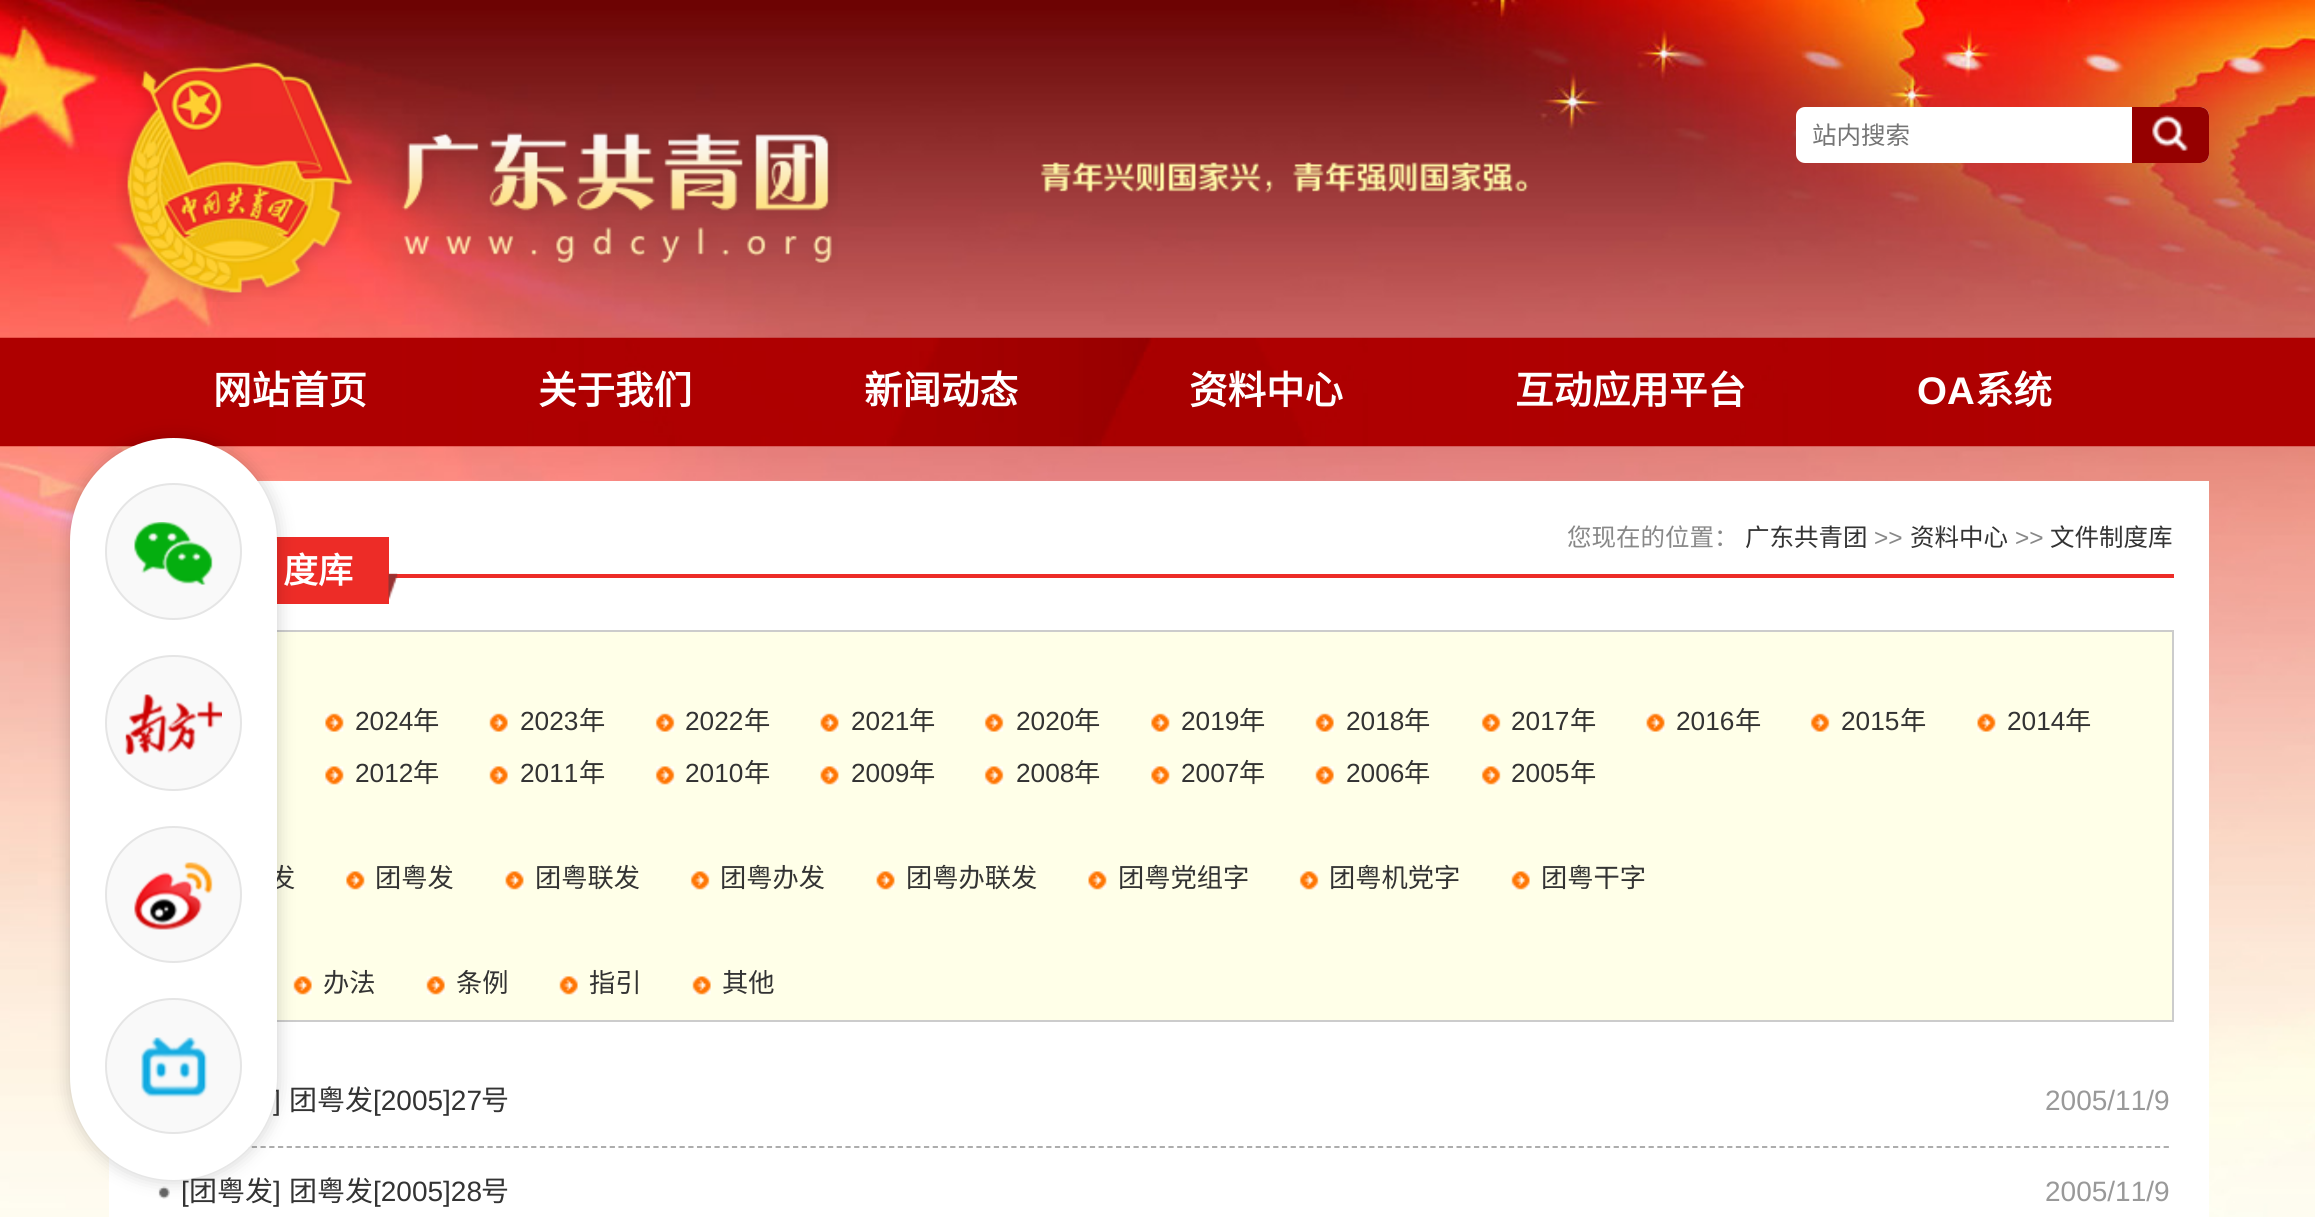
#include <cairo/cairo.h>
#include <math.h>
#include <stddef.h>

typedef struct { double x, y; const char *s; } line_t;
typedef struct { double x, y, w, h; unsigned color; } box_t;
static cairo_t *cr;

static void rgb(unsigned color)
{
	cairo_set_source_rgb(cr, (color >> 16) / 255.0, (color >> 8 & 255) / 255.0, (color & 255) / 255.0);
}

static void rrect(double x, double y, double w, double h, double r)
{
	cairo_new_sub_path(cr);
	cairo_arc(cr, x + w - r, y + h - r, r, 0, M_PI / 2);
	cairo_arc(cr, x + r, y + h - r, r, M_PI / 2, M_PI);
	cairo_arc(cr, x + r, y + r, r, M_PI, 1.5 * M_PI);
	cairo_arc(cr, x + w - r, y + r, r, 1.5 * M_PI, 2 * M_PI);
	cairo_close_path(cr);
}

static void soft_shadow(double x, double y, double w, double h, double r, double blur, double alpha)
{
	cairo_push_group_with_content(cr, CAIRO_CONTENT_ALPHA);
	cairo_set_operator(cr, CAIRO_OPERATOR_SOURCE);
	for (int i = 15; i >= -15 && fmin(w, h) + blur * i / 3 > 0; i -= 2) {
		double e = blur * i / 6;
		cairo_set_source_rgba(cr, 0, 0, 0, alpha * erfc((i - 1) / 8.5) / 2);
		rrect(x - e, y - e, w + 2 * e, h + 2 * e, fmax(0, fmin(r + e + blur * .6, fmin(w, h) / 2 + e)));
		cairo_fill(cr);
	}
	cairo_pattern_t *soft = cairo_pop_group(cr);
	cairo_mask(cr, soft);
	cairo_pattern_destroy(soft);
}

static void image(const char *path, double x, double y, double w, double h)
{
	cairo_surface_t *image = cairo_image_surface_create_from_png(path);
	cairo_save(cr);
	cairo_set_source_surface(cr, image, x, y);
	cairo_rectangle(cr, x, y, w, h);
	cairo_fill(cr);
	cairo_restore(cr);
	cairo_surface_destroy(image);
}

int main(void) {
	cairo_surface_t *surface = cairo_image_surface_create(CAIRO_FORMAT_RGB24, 2315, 1217);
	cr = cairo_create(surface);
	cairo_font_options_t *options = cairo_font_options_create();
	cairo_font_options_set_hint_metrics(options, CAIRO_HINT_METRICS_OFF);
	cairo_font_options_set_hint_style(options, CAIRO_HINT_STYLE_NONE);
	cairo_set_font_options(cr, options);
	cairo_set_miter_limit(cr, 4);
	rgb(0xffffff);
	cairo_paint(cr);
	image("img/1.png", 0, 0, 2315, 1217);
	image("img/2.png", 116, 53, 722, 249);
	rgb(0xffffff);
	rrect(1796, 107, 413, 56, 9);
	cairo_fill(cr);
	rgb(0x950000);
	cairo_new_path(cr);
	cairo_move_to(cr, 2132, 107);
	cairo_line_to(cr, 2200, 107);
	cairo_curve_to(cr, 2205, 107, 2209, 111, 2209, 116);
	cairo_line_to(cr, 2209, 154);
	cairo_curve_to(cr, 2209, 159, 2205, 163, 2200, 163);
	cairo_line_to(cr, 2132, 163);
	cairo_close_path(cr);
	cairo_fill(cr);
	image("img/3.png", 2152, 115, 36, 36);
	image("img/4.png", 1040, 162, 489, 31);
	image("img/5.png", 0, 337, 2315, 110);
	{
		static const box_t items[] = {
			{109, 481, 2100, 736, 0xffffff},
			{276, 537, 113, 67, 0xed2c27},
			{277, 632, 1895, 388, 0xffffe8},
		};
		for (size_t i = 0; i < sizeof items / sizeof *items; i++) {
			rgb(items[i].color);
			cairo_rectangle(cr, items[i].x, items[i].y, items[i].w, items[i].h);
			cairo_fill(cr);
		}
	}
	cairo_rectangle(cr, 145, 631, 2028, 390);
	rgb(0xcccccc);
	cairo_stroke(cr);
	image("img/18.png", 293, 976, 19, 19);
	cairo_new_path(cr);
	cairo_move_to(cr, 147, 1147);
	cairo_line_to(cr, 2170, 1147);
	rgb(0xa4a4a4);
	cairo_set_line_width(cr, 1.8);
	cairo_set_dash(cr, (double[]){5.25, 3.48}, 2, 0);
	cairo_stroke(cr);
	image("img/26.png", 158, 1186, 12, 13);
	rgb(0x000000);
	soft_shadow(70, 438, 207, 742, 103.5, 9, 0.2);
	rgb(0xed2c27);
	cairo_rectangle(cr, 389, 574, 1785, 4);
	cairo_fill(cr);
	image("img/10.png", 388, 573, 10, 27);
	image("img/11.png", 325, 713, 19, 19);
	image("img/12.png", 489, 713, 19, 19);
	image("img/13.png", 655, 713, 20, 19);
	image("img/14.png", 820, 713, 19, 19);
	image("img/15.png", 984, 713, 20, 19);
	image("img/11.png", 1151, 713, 19, 19);
	image("img/12.png", 1315, 713, 19, 19);
	image("img/15.png", 1481, 713, 20, 19);
	image("img/14.png", 1646, 713, 19, 19);
	image("img/13.png", 1810, 713, 20, 19);
	image("img/16.png", 1977, 713, 19, 19);
	image("img/17.png", 325, 766, 19, 19);
	image("img/18.png", 489, 766, 19, 19);
	image("img/19.png", 655, 766, 20, 19);
	image("img/20.png", 820, 766, 19, 19);
	image("img/21.png", 984, 766, 20, 19);
	image("img/17.png", 1151, 766, 19, 19);
	image("img/18.png", 1315, 766, 19, 19);
	image("img/21.png", 1481, 766, 20, 19);
	image("img/17.png", 346, 871, 19, 19);
	image("img/22.png", 505, 871, 19, 19);
	image("img/19.png", 690, 871, 20, 19);
	image("img/20.png", 876, 871, 19, 19);
	image("img/23.png", 1088, 871, 19, 19);
	image("img/24.png", 1299, 871, 20, 19);
	image("img/25.png", 1511, 871, 19, 19);
	image("img/18.png", 426, 976, 19, 19);
	image("img/18.png", 559, 976, 19, 19);
	image("img/18.png", 692, 976, 19, 19);
	cairo_select_font_face(cr, "Noto Sans CJK SC", CAIRO_FONT_SLANT_NORMAL, CAIRO_FONT_WEIGHT_NORMAL);
	cairo_set_font_size(cr, 24.5);
	rgb(0x757575);
	cairo_move_to(cr, 1812, 144);
	cairo_show_text(cr, "站内搜索");
	cairo_select_font_face(cr, "Noto Sans CJK SC", CAIRO_FONT_SLANT_NORMAL, CAIRO_FONT_WEIGHT_BOLD);
	cairo_set_font_size(cr, 38.5);
	rgb(0xffffff);
	{
		static const line_t items[] = {
			{213, 404, "网站首页"},
			{538, 404, "关于我们"},
			{864, 404, "新闻动态"},
			{1189, 404, "资料中心"},
			{1515, 404, "互动应用平台"},
		};
		for (size_t i = 0; i < sizeof items / sizeof *items; i++) {
			cairo_move_to(cr, items[i].x, items[i].y);
			cairo_show_text(cr, items[i].s);
		}
	}
	cairo_select_font_face(cr, "Liberation Sans", CAIRO_FONT_SLANT_NORMAL, CAIRO_FONT_WEIGHT_BOLD);
	cairo_move_to(cr, 1917, 404);
	cairo_show_text(cr, "OA");
	cairo_select_font_face(cr, "Noto Sans CJK SC", CAIRO_FONT_SLANT_NORMAL, CAIRO_FONT_WEIGHT_BOLD);
	cairo_move_to(cr, 1975, 404);
	cairo_show_text(cr, "系统");
	cairo_select_font_face(cr, "Noto Sans CJK SC", CAIRO_FONT_SLANT_NORMAL, CAIRO_FONT_WEIGHT_NORMAL);
	cairo_set_font_size(cr, 24.5);
	rgb(0x888888);
	cairo_move_to(cr, 1567, 546);
	cairo_show_text(cr, "您现在的位置：");
	rgb(0x333333);
	cairo_move_to(cr, 1745, 546);
	cairo_show_text(cr, "广东共青团");
	cairo_select_font_face(cr, "Liberation Sans", CAIRO_FONT_SLANT_NORMAL, CAIRO_FONT_WEIGHT_NORMAL);
	rgb(0x888888);
	cairo_move_to(cr, 1874, 546);
	cairo_show_text(cr, ">>");
	cairo_select_font_face(cr, "Noto Sans CJK SC", CAIRO_FONT_SLANT_NORMAL, CAIRO_FONT_WEIGHT_NORMAL);
	rgb(0x333333);
	cairo_move_to(cr, 1910, 546);
	cairo_show_text(cr, "资料中心");
	cairo_select_font_face(cr, "Liberation Sans", CAIRO_FONT_SLANT_NORMAL, CAIRO_FONT_WEIGHT_NORMAL);
	rgb(0x888888);
	cairo_move_to(cr, 2015, 546);
	cairo_show_text(cr, ">>");
	cairo_select_font_face(cr, "Noto Sans CJK SC", CAIRO_FONT_SLANT_NORMAL, CAIRO_FONT_WEIGHT_NORMAL);
	rgb(0x333333);
	cairo_move_to(cr, 2050, 546);
	cairo_show_text(cr, "文件制度库");
	cairo_select_font_face(cr, "Noto Sans CJK SC", CAIRO_FONT_SLANT_NORMAL, CAIRO_FONT_WEIGHT_BOLD);
	cairo_set_font_size(cr, 35);
	rgb(0xffffff);
	cairo_move_to(cr, 283, 583);
	cairo_show_text(cr, "度库");
	cairo_select_font_face(cr, "Liberation Sans", CAIRO_FONT_SLANT_NORMAL, CAIRO_FONT_WEIGHT_NORMAL);
	cairo_set_font_size(cr, 26.25);
	rgb(0x333333);
	cairo_move_to(cr, 355, 730);
	cairo_show_text(cr, "2024");
	cairo_select_font_face(cr, "Noto Sans CJK SC", CAIRO_FONT_SLANT_NORMAL, CAIRO_FONT_WEIGHT_NORMAL);
	cairo_move_to(cr, 413, 730);
	cairo_show_text(cr, "年");
	cairo_select_font_face(cr, "Liberation Sans", CAIRO_FONT_SLANT_NORMAL, CAIRO_FONT_WEIGHT_NORMAL);
	cairo_move_to(cr, 520, 730);
	cairo_show_text(cr, "2023");
	cairo_select_font_face(cr, "Noto Sans CJK SC", CAIRO_FONT_SLANT_NORMAL, CAIRO_FONT_WEIGHT_NORMAL);
	cairo_move_to(cr, 579, 730);
	cairo_show_text(cr, "年");
	cairo_select_font_face(cr, "Liberation Sans", CAIRO_FONT_SLANT_NORMAL, CAIRO_FONT_WEIGHT_NORMAL);
	cairo_move_to(cr, 685, 730);
	cairo_show_text(cr, "2022");
	cairo_select_font_face(cr, "Noto Sans CJK SC", CAIRO_FONT_SLANT_NORMAL, CAIRO_FONT_WEIGHT_NORMAL);
	cairo_move_to(cr, 744, 730);
	cairo_show_text(cr, "年");
	cairo_select_font_face(cr, "Liberation Sans", CAIRO_FONT_SLANT_NORMAL, CAIRO_FONT_WEIGHT_NORMAL);
	cairo_move_to(cr, 851, 730);
	cairo_show_text(cr, "2021");
	cairo_select_font_face(cr, "Noto Sans CJK SC", CAIRO_FONT_SLANT_NORMAL, CAIRO_FONT_WEIGHT_NORMAL);
	cairo_move_to(cr, 909, 730);
	cairo_show_text(cr, "年");
	cairo_select_font_face(cr, "Liberation Sans", CAIRO_FONT_SLANT_NORMAL, CAIRO_FONT_WEIGHT_NORMAL);
	cairo_move_to(cr, 1016, 730);
	cairo_show_text(cr, "2020");
	cairo_select_font_face(cr, "Noto Sans CJK SC", CAIRO_FONT_SLANT_NORMAL, CAIRO_FONT_WEIGHT_NORMAL);
	cairo_move_to(cr, 1074, 730);
	cairo_show_text(cr, "年");
	cairo_select_font_face(cr, "Liberation Sans", CAIRO_FONT_SLANT_NORMAL, CAIRO_FONT_WEIGHT_NORMAL);
	cairo_move_to(cr, 1181, 730);
	cairo_show_text(cr, "2019");
	cairo_select_font_face(cr, "Noto Sans CJK SC", CAIRO_FONT_SLANT_NORMAL, CAIRO_FONT_WEIGHT_NORMAL);
	cairo_move_to(cr, 1239, 730);
	cairo_show_text(cr, "年");
	cairo_select_font_face(cr, "Liberation Sans", CAIRO_FONT_SLANT_NORMAL, CAIRO_FONT_WEIGHT_NORMAL);
	cairo_move_to(cr, 1346, 730);
	cairo_show_text(cr, "2018");
	cairo_select_font_face(cr, "Noto Sans CJK SC", CAIRO_FONT_SLANT_NORMAL, CAIRO_FONT_WEIGHT_NORMAL);
	cairo_move_to(cr, 1404, 730);
	cairo_show_text(cr, "年");
	cairo_select_font_face(cr, "Liberation Sans", CAIRO_FONT_SLANT_NORMAL, CAIRO_FONT_WEIGHT_NORMAL);
	cairo_move_to(cr, 1511, 730);
	cairo_show_text(cr, "2017");
	cairo_select_font_face(cr, "Noto Sans CJK SC", CAIRO_FONT_SLANT_NORMAL, CAIRO_FONT_WEIGHT_NORMAL);
	cairo_move_to(cr, 1570, 730);
	cairo_show_text(cr, "年");
	cairo_select_font_face(cr, "Liberation Sans", CAIRO_FONT_SLANT_NORMAL, CAIRO_FONT_WEIGHT_NORMAL);
	cairo_move_to(cr, 1676, 730);
	cairo_show_text(cr, "2016");
	cairo_select_font_face(cr, "Noto Sans CJK SC", CAIRO_FONT_SLANT_NORMAL, CAIRO_FONT_WEIGHT_NORMAL);
	cairo_move_to(cr, 1735, 730);
	cairo_show_text(cr, "年");
	cairo_select_font_face(cr, "Liberation Sans", CAIRO_FONT_SLANT_NORMAL, CAIRO_FONT_WEIGHT_NORMAL);
	cairo_move_to(cr, 1841, 730);
	cairo_show_text(cr, "2015");
	cairo_select_font_face(cr, "Noto Sans CJK SC", CAIRO_FONT_SLANT_NORMAL, CAIRO_FONT_WEIGHT_NORMAL);
	cairo_move_to(cr, 1900, 730);
	cairo_show_text(cr, "年");
	cairo_select_font_face(cr, "Liberation Sans", CAIRO_FONT_SLANT_NORMAL, CAIRO_FONT_WEIGHT_NORMAL);
	cairo_move_to(cr, 2007, 730);
	cairo_show_text(cr, "2014");
	cairo_select_font_face(cr, "Noto Sans CJK SC", CAIRO_FONT_SLANT_NORMAL, CAIRO_FONT_WEIGHT_NORMAL);
	cairo_move_to(cr, 2065, 730);
	cairo_show_text(cr, "年");
	cairo_select_font_face(cr, "Liberation Sans", CAIRO_FONT_SLANT_NORMAL, CAIRO_FONT_WEIGHT_NORMAL);
	cairo_move_to(cr, 355, 782);
	cairo_show_text(cr, "2012");
	cairo_select_font_face(cr, "Noto Sans CJK SC", CAIRO_FONT_SLANT_NORMAL, CAIRO_FONT_WEIGHT_NORMAL);
	cairo_move_to(cr, 413, 782);
	cairo_show_text(cr, "年");
	cairo_select_font_face(cr, "Liberation Sans", CAIRO_FONT_SLANT_NORMAL, CAIRO_FONT_WEIGHT_NORMAL);
	cairo_move_to(cr, 520, 782);
	cairo_show_text(cr, "2011");
	cairo_select_font_face(cr, "Noto Sans CJK SC", CAIRO_FONT_SLANT_NORMAL, CAIRO_FONT_WEIGHT_NORMAL);
	cairo_move_to(cr, 579, 782);
	cairo_show_text(cr, "年");
	cairo_select_font_face(cr, "Liberation Sans", CAIRO_FONT_SLANT_NORMAL, CAIRO_FONT_WEIGHT_NORMAL);
	cairo_move_to(cr, 685, 782);
	cairo_show_text(cr, "2010");
	cairo_select_font_face(cr, "Noto Sans CJK SC", CAIRO_FONT_SLANT_NORMAL, CAIRO_FONT_WEIGHT_NORMAL);
	cairo_move_to(cr, 744, 782);
	cairo_show_text(cr, "年");
	cairo_select_font_face(cr, "Liberation Sans", CAIRO_FONT_SLANT_NORMAL, CAIRO_FONT_WEIGHT_NORMAL);
	cairo_move_to(cr, 851, 782);
	cairo_show_text(cr, "2009");
	cairo_select_font_face(cr, "Noto Sans CJK SC", CAIRO_FONT_SLANT_NORMAL, CAIRO_FONT_WEIGHT_NORMAL);
	cairo_move_to(cr, 909, 782);
	cairo_show_text(cr, "年");
	cairo_select_font_face(cr, "Liberation Sans", CAIRO_FONT_SLANT_NORMAL, CAIRO_FONT_WEIGHT_NORMAL);
	cairo_move_to(cr, 1016, 782);
	cairo_show_text(cr, "2008");
	cairo_select_font_face(cr, "Noto Sans CJK SC", CAIRO_FONT_SLANT_NORMAL, CAIRO_FONT_WEIGHT_NORMAL);
	cairo_move_to(cr, 1074, 782);
	cairo_show_text(cr, "年");
	cairo_select_font_face(cr, "Liberation Sans", CAIRO_FONT_SLANT_NORMAL, CAIRO_FONT_WEIGHT_NORMAL);
	cairo_move_to(cr, 1181, 782);
	cairo_show_text(cr, "2007");
	cairo_select_font_face(cr, "Noto Sans CJK SC", CAIRO_FONT_SLANT_NORMAL, CAIRO_FONT_WEIGHT_NORMAL);
	cairo_move_to(cr, 1239, 782);
	cairo_show_text(cr, "年");
	cairo_select_font_face(cr, "Liberation Sans", CAIRO_FONT_SLANT_NORMAL, CAIRO_FONT_WEIGHT_NORMAL);
	cairo_move_to(cr, 1346, 782);
	cairo_show_text(cr, "2006");
	cairo_select_font_face(cr, "Noto Sans CJK SC", CAIRO_FONT_SLANT_NORMAL, CAIRO_FONT_WEIGHT_NORMAL);
	cairo_move_to(cr, 1404, 782);
	cairo_show_text(cr, "年");
	cairo_select_font_face(cr, "Liberation Sans", CAIRO_FONT_SLANT_NORMAL, CAIRO_FONT_WEIGHT_NORMAL);
	cairo_move_to(cr, 1511, 782);
	cairo_show_text(cr, "2005");
	cairo_select_font_face(cr, "Noto Sans CJK SC", CAIRO_FONT_SLANT_NORMAL, CAIRO_FONT_WEIGHT_NORMAL);
	{
		static const line_t items[] = {
			{1570, 782, "年"},
			{269, 887, "发"},
			{375, 887, "团粤发"},
			{535, 887, "团粤联发"},
			{720, 887, "团粤办发"},
			{906, 887, "团粤办联发"},
			{1118, 887, "团粤党组字"},
			{1329, 887, "团粤机党字"},
			{1541, 887, "团粤干字"},
			{323, 992, "办法"},
			{456, 992, "条例"},
			{589, 992, "指引"},
			{722, 992, "其他"},
		};
		for (size_t i = 0; i < sizeof items / sizeof *items; i++) {
			cairo_move_to(cr, items[i].x, items[i].y);
			cairo_show_text(cr, items[i].s);
		}
	}
	cairo_select_font_face(cr, "Liberation Sans", CAIRO_FONT_SLANT_NORMAL, CAIRO_FONT_WEIGHT_NORMAL);
	cairo_set_font_size(cr, 28);
	cairo_move_to(cr, 273, 1110);
	cairo_show_text(cr, "]");
	cairo_select_font_face(cr, "Noto Sans CJK SC", CAIRO_FONT_SLANT_NORMAL, CAIRO_FONT_WEIGHT_NORMAL);
	cairo_move_to(cr, 289, 1110);
	cairo_show_text(cr, "团粤发");
	cairo_select_font_face(cr, "Liberation Sans", CAIRO_FONT_SLANT_NORMAL, CAIRO_FONT_WEIGHT_NORMAL);
	cairo_move_to(cr, 373, 1110);
	cairo_show_text(cr, "[2005]27");
	cairo_select_font_face(cr, "Noto Sans CJK SC", CAIRO_FONT_SLANT_NORMAL, CAIRO_FONT_WEIGHT_NORMAL);
	cairo_move_to(cr, 481, 1110);
	cairo_show_text(cr, "号");
	cairo_select_font_face(cr, "Liberation Sans", CAIRO_FONT_SLANT_NORMAL, CAIRO_FONT_WEIGHT_NORMAL);
	rgb(0x999999);
	cairo_move_to(cr, 2045, 1110);
	cairo_show_text(cr, "2005/11/9");
	rgb(0x333333);
	cairo_move_to(cr, 181, 1201);
	cairo_show_text(cr, "[");
	cairo_select_font_face(cr, "Noto Sans CJK SC", CAIRO_FONT_SLANT_NORMAL, CAIRO_FONT_WEIGHT_NORMAL);
	cairo_move_to(cr, 189, 1201);
	cairo_show_text(cr, "团粤发");
	rgb(0xffffff);
	rrect(70, 438, 207, 742, 103.5);
	cairo_fill(cr);
	rgb(0xf9f9f9);
	rrect(106, 999, 135, 134, 67);
	cairo_fill_preserve(cr);
	rgb(0xe5e5e5);
	cairo_set_line_width(cr, 2);
	cairo_set_dash(cr, NULL, 0, 0);
	cairo_stroke(cr);
	image("img/9.png", 141, 1037, 67, 61);
	rgb(0xf9f9f9);
	cairo_arc(cr, 173.5, 894.5, 67.5, 0, 2 * M_PI);
	cairo_fill_preserve(cr);
	rgb(0xe5e5e5);
	cairo_stroke(cr);
	image("img/8.png", 134, 862, 79, 68);
	rgb(0xf9f9f9);
	rrect(106, 656, 135, 134, 67);
	cairo_fill_preserve(cr);
	rgb(0xe5e5e5);
	cairo_stroke(cr);
	image("img/7.png", 125, 694, 97, 61);
	rgb(0xf9f9f9);
	cairo_arc(cr, 173.5, 551.5, 67.5, 0, 2 * M_PI);
	cairo_fill_preserve(cr);
	rgb(0xe5e5e5);
	cairo_stroke(cr);
	image("img/6.png", 134, 522, 79, 63);
	cairo_select_font_face(cr, "Liberation Sans", CAIRO_FONT_SLANT_NORMAL, CAIRO_FONT_WEIGHT_NORMAL);
	rgb(0x333333);
	cairo_move_to(cr, 273, 1201);
	cairo_show_text(cr, "]");
	cairo_select_font_face(cr, "Noto Sans CJK SC", CAIRO_FONT_SLANT_NORMAL, CAIRO_FONT_WEIGHT_NORMAL);
	cairo_move_to(cr, 289, 1201);
	cairo_show_text(cr, "团粤发");
	cairo_select_font_face(cr, "Liberation Sans", CAIRO_FONT_SLANT_NORMAL, CAIRO_FONT_WEIGHT_NORMAL);
	cairo_move_to(cr, 373, 1201);
	cairo_show_text(cr, "[2005]28");
	cairo_select_font_face(cr, "Noto Sans CJK SC", CAIRO_FONT_SLANT_NORMAL, CAIRO_FONT_WEIGHT_NORMAL);
	cairo_move_to(cr, 481, 1201);
	cairo_show_text(cr, "号");
	cairo_select_font_face(cr, "Liberation Sans", CAIRO_FONT_SLANT_NORMAL, CAIRO_FONT_WEIGHT_NORMAL);
	rgb(0x999999);
	cairo_move_to(cr, 2045, 1201);
	cairo_show_text(cr, "2005/11/9");
	cairo_surface_write_to_png(surface, "page.png");
	cairo_font_options_destroy(options);
	cairo_destroy(cr);
	cairo_surface_destroy(surface);
	return 0;
}
